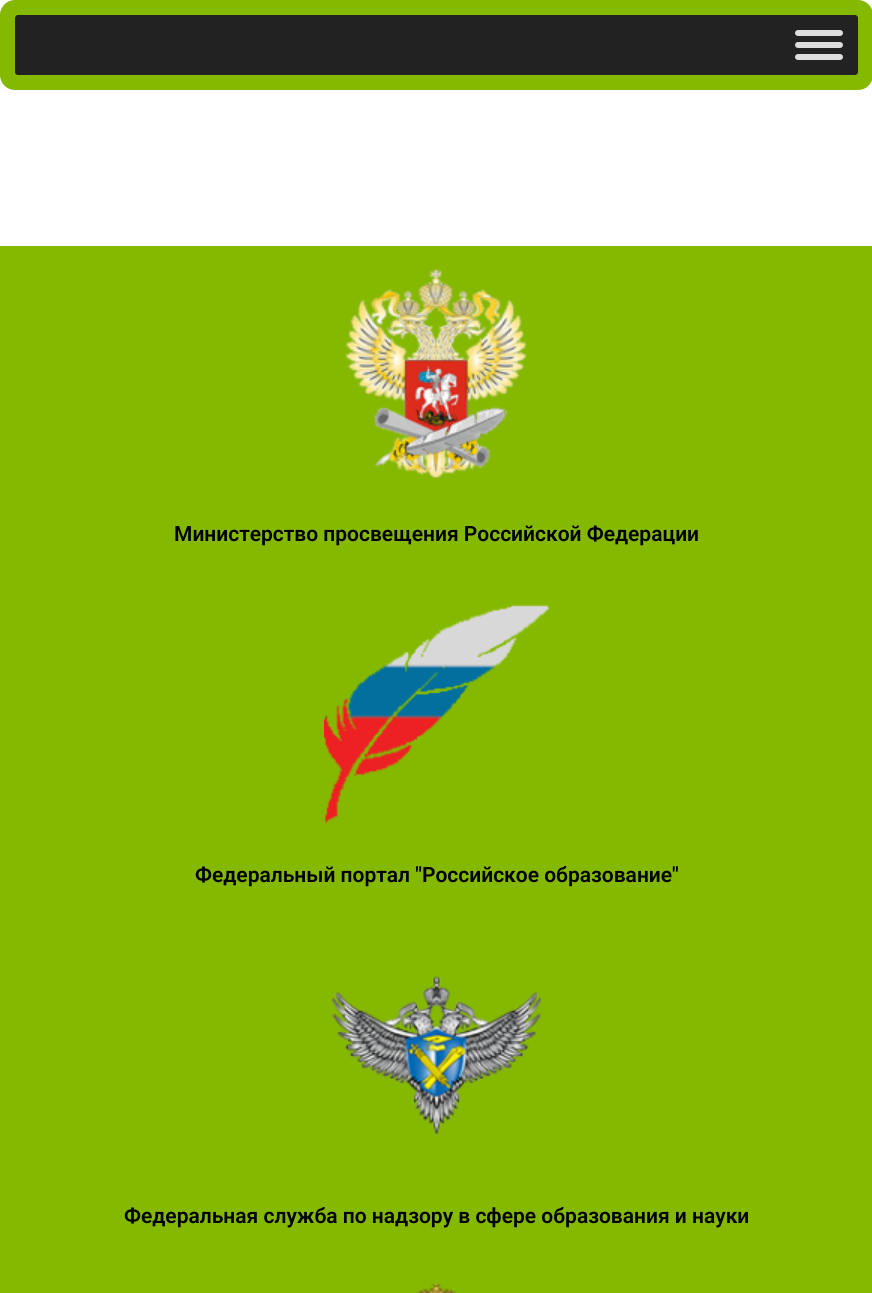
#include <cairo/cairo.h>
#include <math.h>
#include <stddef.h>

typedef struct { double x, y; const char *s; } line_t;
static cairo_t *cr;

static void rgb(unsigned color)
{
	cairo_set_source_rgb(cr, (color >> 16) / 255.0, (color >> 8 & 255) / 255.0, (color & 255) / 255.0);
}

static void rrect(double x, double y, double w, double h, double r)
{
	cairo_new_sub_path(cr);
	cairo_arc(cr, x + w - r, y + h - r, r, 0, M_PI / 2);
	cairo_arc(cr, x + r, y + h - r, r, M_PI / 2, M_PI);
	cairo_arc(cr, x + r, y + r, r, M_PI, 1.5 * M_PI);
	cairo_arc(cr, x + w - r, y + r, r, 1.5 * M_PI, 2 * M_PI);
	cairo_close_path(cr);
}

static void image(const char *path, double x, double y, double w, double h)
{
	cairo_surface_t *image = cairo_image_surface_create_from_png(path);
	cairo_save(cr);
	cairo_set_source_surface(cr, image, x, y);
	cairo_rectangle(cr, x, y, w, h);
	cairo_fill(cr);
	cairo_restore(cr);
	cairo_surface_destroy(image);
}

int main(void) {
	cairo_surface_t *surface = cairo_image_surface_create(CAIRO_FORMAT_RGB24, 872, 1293);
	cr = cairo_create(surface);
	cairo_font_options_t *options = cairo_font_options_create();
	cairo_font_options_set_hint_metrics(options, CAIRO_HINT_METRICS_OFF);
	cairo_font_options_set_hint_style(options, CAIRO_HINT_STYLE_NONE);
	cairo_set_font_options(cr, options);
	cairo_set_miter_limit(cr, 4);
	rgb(0xffffff);
	cairo_paint(cr);
	rgb(0x85b900);
	rrect(0, 0, 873, 90, 15);
	cairo_fill(cr);
	rgb(0x222222);
	rrect(15, 15, 843, 60, 3);
	cairo_fill(cr);
	rgb(0xdddddd);
	rrect(795, 30, 48, 6, 3);
	cairo_fill(cr);
	rrect(795, 42, 48, 6, 3);
	cairo_fill(cr);
	rrect(795, 54, 48, 6, 3);
	cairo_fill(cr);
	rgb(0x85b900);
	cairo_rectangle(cr, 0, 246, 872, 1047);
	cairo_fill(cr);
	image("img/1.png", 345, 268, 182, 211);
	image("img/2.png", 324, 604, 225, 220);
	image("img/3.png", 330, 976, 213, 160);
	image("img/4.png", 416, 1284, 41, 9);
	cairo_select_font_face(cr, "Roboto SemiBold", CAIRO_FONT_SLANT_NORMAL, CAIRO_FONT_WEIGHT_NORMAL);
	cairo_set_font_size(cr, 21);
	rgb(0x000000);
	{
		static const line_t items[] = {
			{174, 541, "Министерство просвещения Российской Федерации"},
			{195, 882, "Федеральный портал \"Российское образование\""},
			{124, 1223, "Федеральная служба по надзору в сфере образования и науки"},
		};
		for (size_t i = 0; i < sizeof items / sizeof *items; i++) {
			cairo_move_to(cr, items[i].x, items[i].y);
			cairo_show_text(cr, items[i].s);
		}
	}
	cairo_surface_write_to_png(surface, "page.png");
	cairo_font_options_destroy(options);
	cairo_destroy(cr);
	cairo_surface_destroy(surface);
	return 0;
}
